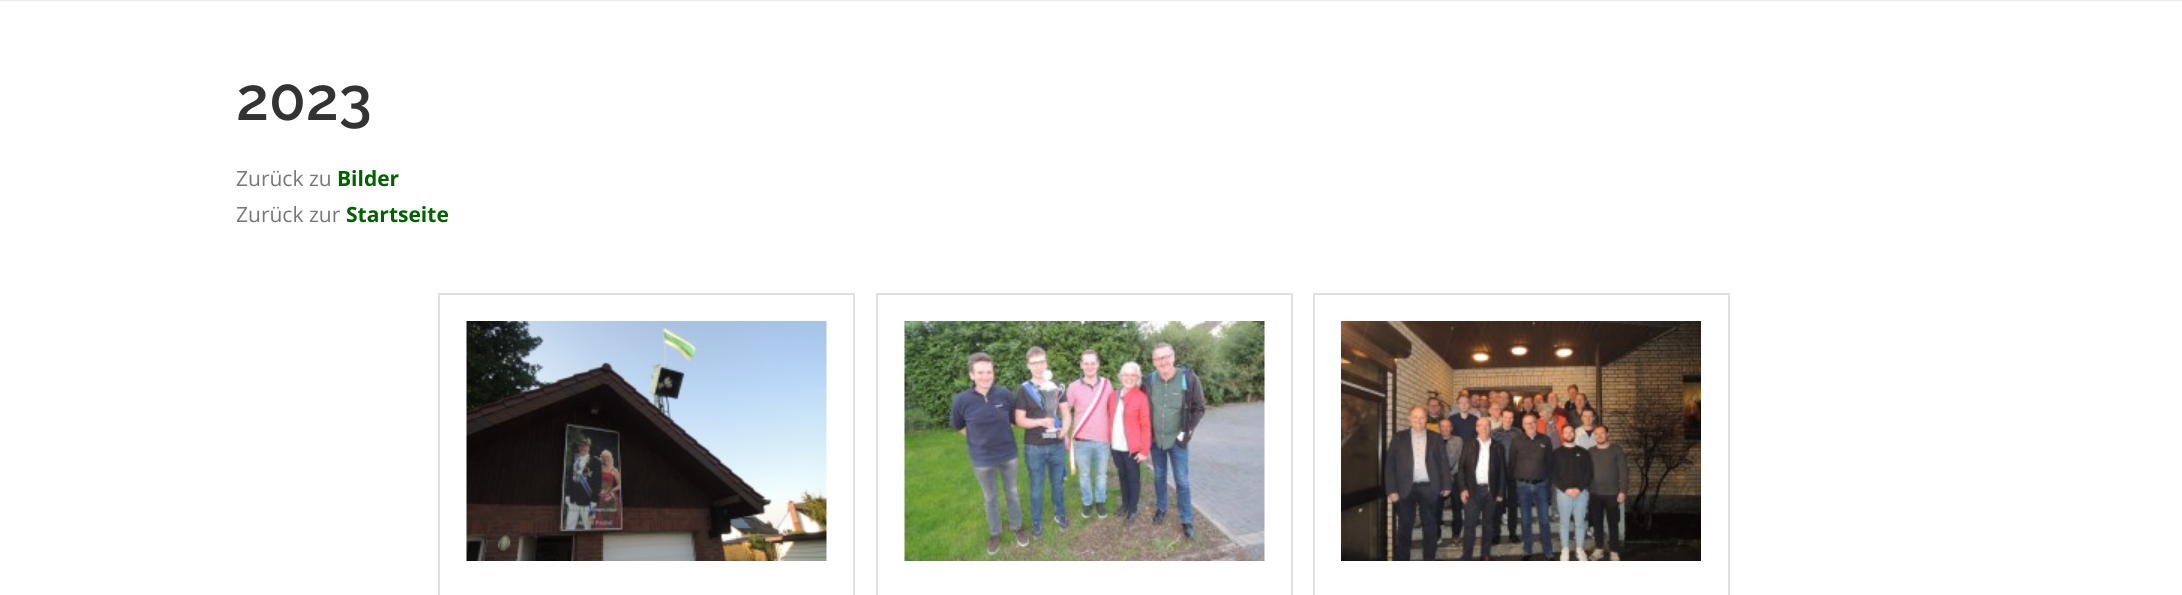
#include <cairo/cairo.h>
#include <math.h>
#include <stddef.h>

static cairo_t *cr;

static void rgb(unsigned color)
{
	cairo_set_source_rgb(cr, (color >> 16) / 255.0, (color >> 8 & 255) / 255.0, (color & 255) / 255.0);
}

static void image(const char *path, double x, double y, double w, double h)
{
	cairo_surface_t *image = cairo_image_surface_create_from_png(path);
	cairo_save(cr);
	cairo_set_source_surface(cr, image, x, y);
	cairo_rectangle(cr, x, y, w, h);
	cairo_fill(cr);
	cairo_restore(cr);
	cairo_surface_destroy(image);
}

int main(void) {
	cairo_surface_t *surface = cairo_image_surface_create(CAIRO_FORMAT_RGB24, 2182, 595);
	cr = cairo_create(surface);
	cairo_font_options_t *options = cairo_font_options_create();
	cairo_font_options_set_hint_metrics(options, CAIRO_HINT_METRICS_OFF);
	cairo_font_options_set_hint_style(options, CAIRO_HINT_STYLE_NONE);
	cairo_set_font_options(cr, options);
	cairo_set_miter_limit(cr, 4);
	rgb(0xffffff);
	cairo_paint(cr);
	rgb(0xe9e9e9);
	cairo_rectangle(cr, 0, 0, 2182, 1);
	cairo_fill(cr);
	cairo_rectangle(cr, 439, 294, 415, 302);
	rgb(0xe0e0e0);
	cairo_stroke(cr);
	image("img/1.png", 466, 321, 361, 240);
	cairo_rectangle(cr, 877, 294, 415, 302);
	cairo_stroke(cr);
	image("img/2.png", 904, 321, 361, 240);
	cairo_rectangle(cr, 1314, 294, 415, 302);
	cairo_set_source_rgba(cr, 0.588, 0.588, 0.588, 0.3);
	cairo_stroke(cr);
	image("img/3.png", 1341, 321, 360, 240);
	cairo_select_font_face(cr, "Raleway SemiBold", CAIRO_FONT_SLANT_NORMAL, CAIRO_FONT_WEIGHT_NORMAL);
	cairo_set_font_size(cr, 60);
	rgb(0x333333);
	cairo_move_to(cr, 236, 120);
	cairo_show_text(cr, "2023");
	cairo_select_font_face(cr, "Open Sans", CAIRO_FONT_SLANT_NORMAL, CAIRO_FONT_WEIGHT_NORMAL);
	cairo_set_font_size(cr, 21);
	rgb(0x777777);
	cairo_move_to(cr, 236, 186);
	cairo_show_text(cr, "Zurück zu");
	cairo_select_font_face(cr, "Open Sans", CAIRO_FONT_SLANT_NORMAL, CAIRO_FONT_WEIGHT_BOLD);
	rgb(0x016000);
	cairo_move_to(cr, 337, 186);
	cairo_show_text(cr, "Bilder");
	cairo_select_font_face(cr, "Open Sans", CAIRO_FONT_SLANT_NORMAL, CAIRO_FONT_WEIGHT_NORMAL);
	rgb(0x777777);
	cairo_move_to(cr, 236, 222);
	cairo_show_text(cr, "Zurück zur");
	cairo_select_font_face(cr, "Open Sans", CAIRO_FONT_SLANT_NORMAL, CAIRO_FONT_WEIGHT_BOLD);
	rgb(0x016000);
	cairo_move_to(cr, 346, 222);
	cairo_show_text(cr, "Startseite");
	cairo_surface_write_to_png(surface, "page.png");
	cairo_font_options_destroy(options);
	cairo_destroy(cr);
	cairo_surface_destroy(surface);
	return 0;
}
